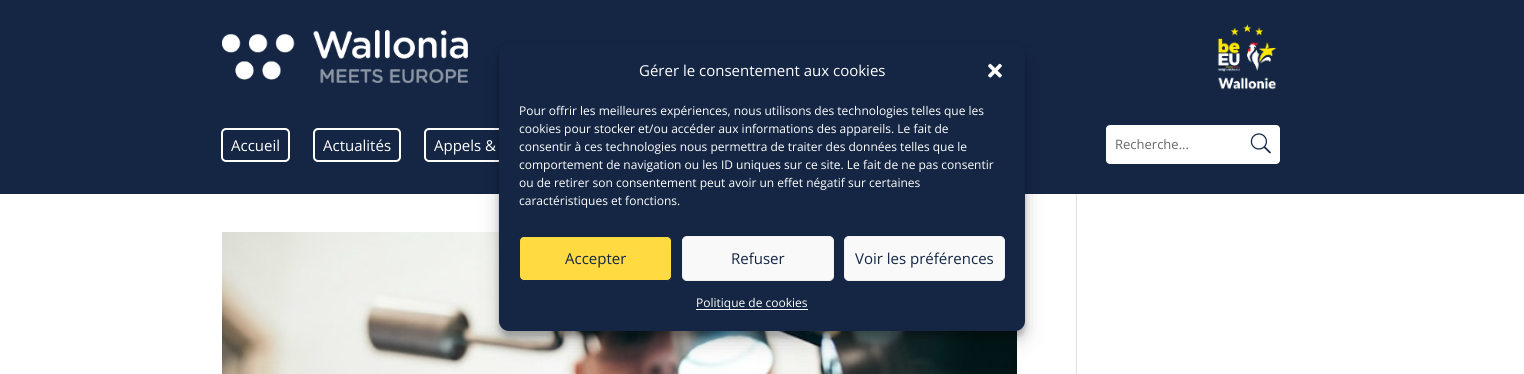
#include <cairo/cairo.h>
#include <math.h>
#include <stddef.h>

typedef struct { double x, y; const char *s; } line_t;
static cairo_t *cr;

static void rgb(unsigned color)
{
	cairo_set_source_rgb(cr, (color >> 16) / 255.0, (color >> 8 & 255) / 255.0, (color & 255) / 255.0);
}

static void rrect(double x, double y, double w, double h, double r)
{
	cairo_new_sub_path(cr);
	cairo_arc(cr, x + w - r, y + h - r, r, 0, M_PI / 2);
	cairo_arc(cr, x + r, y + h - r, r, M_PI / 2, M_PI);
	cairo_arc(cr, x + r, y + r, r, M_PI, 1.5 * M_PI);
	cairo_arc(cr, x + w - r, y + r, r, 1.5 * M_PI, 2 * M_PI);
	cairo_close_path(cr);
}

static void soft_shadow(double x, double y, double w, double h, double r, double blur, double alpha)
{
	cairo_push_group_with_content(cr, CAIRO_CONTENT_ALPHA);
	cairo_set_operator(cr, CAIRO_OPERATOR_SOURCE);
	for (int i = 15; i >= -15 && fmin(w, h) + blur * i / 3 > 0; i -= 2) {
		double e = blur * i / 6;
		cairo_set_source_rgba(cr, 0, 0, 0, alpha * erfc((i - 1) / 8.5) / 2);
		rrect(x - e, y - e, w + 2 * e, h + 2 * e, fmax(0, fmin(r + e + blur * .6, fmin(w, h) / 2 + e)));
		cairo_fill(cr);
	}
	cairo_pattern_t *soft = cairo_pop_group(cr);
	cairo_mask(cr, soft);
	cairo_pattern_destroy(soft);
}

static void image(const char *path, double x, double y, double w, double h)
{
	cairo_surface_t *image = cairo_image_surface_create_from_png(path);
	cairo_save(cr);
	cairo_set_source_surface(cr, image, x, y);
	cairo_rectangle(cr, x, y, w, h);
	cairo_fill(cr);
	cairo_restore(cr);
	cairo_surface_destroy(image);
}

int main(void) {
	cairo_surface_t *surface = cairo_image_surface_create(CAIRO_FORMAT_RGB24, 1524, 374);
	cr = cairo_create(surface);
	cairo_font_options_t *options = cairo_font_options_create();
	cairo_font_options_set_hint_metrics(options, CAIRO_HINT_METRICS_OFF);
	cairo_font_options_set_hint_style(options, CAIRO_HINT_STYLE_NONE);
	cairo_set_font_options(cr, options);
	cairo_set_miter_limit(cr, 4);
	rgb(0xffffff);
	cairo_paint(cr);
	rgb(0x142644);
	cairo_rectangle(cr, 0, 0, 1524, 194);
	cairo_fill(cr);
	rrect(425, 129, 125, 32, 4);
	rgb(0xffffff);
	cairo_stroke(cr);
	image("img/5.png", 222, 232, 795, 142);
	rgb(0x000000);
	soft_shadow(499, 50, 526, 287, 10, 3, 0.23);
	soft_shadow(499, 54, 526, 287, 10, 10, 0.19);
	rgb(0x142644);
	rrect(499, 44, 526, 287, 10);
	cairo_fill(cr);
	image("img/1.png", 988, 63, 14, 15);
	rgb(0xffda41);
	rrect(519.5, 236.5, 152, 44, 4.5);
	cairo_fill_preserve(cr);
	rgb(0x142644);
	cairo_set_line_width(cr, 1);
	cairo_stroke(cr);
	rgb(0xf9f9f9);
	rrect(682.5, 236.5, 151, 44, 4.5);
	cairo_fill_preserve(cr);
	rgb(0xf2f2f2);
	cairo_stroke(cr);
	rgb(0xf9f9f9);
	rrect(844.5, 236.5, 160, 44, 4.5);
	cairo_fill_preserve(cr);
	rgb(0xf2f2f2);
	cairo_stroke(cr);
	rgb(0xffffff);
	cairo_rectangle(cr, 696, 309, 112, 1);
	cairo_fill(cr);
	image("img/2.png", 222, 30, 246, 53);
	image("img/3.png", 1217, 24, 60, 66);
	rrect(222, 129, 67, 32, 4);
	cairo_set_line_width(cr, 2);
	cairo_stroke(cr);
	rrect(314, 129, 86, 32, 4);
	cairo_stroke(cr);
	rrect(1106, 125, 174, 39, 4);
	cairo_fill(cr);
	image("img/4.png", 1250, 133, 21, 21);
	rgb(0xe2e2e2);
	cairo_rectangle(cr, 1076, 194, 1, 180);
	cairo_fill(cr);
	cairo_select_font_face(cr, "Open Sans", CAIRO_FONT_SLANT_NORMAL, CAIRO_FONT_WEIGHT_NORMAL);
	cairo_set_font_size(cr, 15);
	rgb(0xffffff);
	cairo_move_to(cr, 639, 76);
	cairo_show_text(cr, "Gérer le consentement aux cookies");
	cairo_set_font_size(cr, 12);
	{
		static const line_t items[] = {
			{519, 115, "Pour offrir les meilleures expériences, nous utilisons des technologies telles que les"},
			{519, 133, "cookies pour stocker et/ou accéder aux informations des appareils. Le fait de"},
			{519, 151, "consentir à ces technologies nous permettra de traiter des données telles que le"},
			{519, 169, "comportement de navigation ou les ID uniques sur ce site. Le fait de ne pas consentir"},
			{519, 187, "ou de retirer son consentement peut avoir un effet négatif sur certaines"},
			{519, 205, "caractéristiques et fonctions."},
		};
		for (size_t i = 0; i < sizeof items / sizeof *items; i++) {
			cairo_move_to(cr, items[i].x, items[i].y);
			cairo_show_text(cr, items[i].s);
		}
	}
	cairo_set_font_size(cr, 15);
	rgb(0x142644);
	{
		static const line_t items[] = {
			{565, 264, "Accepter"},
			{731, 264, "Refuser"},
			{855, 264, "Voir les préférences"},
		};
		for (size_t i = 0; i < sizeof items / sizeof *items; i++) {
			cairo_move_to(cr, items[i].x, items[i].y);
			cairo_show_text(cr, items[i].s);
		}
	}
	cairo_set_font_size(cr, 12);
	rgb(0xffffff);
	cairo_move_to(cr, 696, 307);
	cairo_show_text(cr, "Politique de cookies");
	cairo_set_font_size(cr, 15);
	{
		static const line_t items[] = {
			{231, 151, "Accueil"},
			{323, 151, "Actualités"},
			{434, 151, "Appels &"},
		};
		for (size_t i = 0; i < sizeof items / sizeof *items; i++) {
			cairo_move_to(cr, items[i].x, items[i].y);
			cairo_show_text(cr, items[i].s);
		}
	}
	cairo_set_font_size(cr, 13);
	rgb(0x666666);
	cairo_move_to(cr, 1115, 149);
	cairo_show_text(cr, "Recherche...");
	cairo_surface_write_to_png(surface, "page.png");
	cairo_font_options_destroy(options);
	cairo_destroy(cr);
	cairo_surface_destroy(surface);
	return 0;
}
